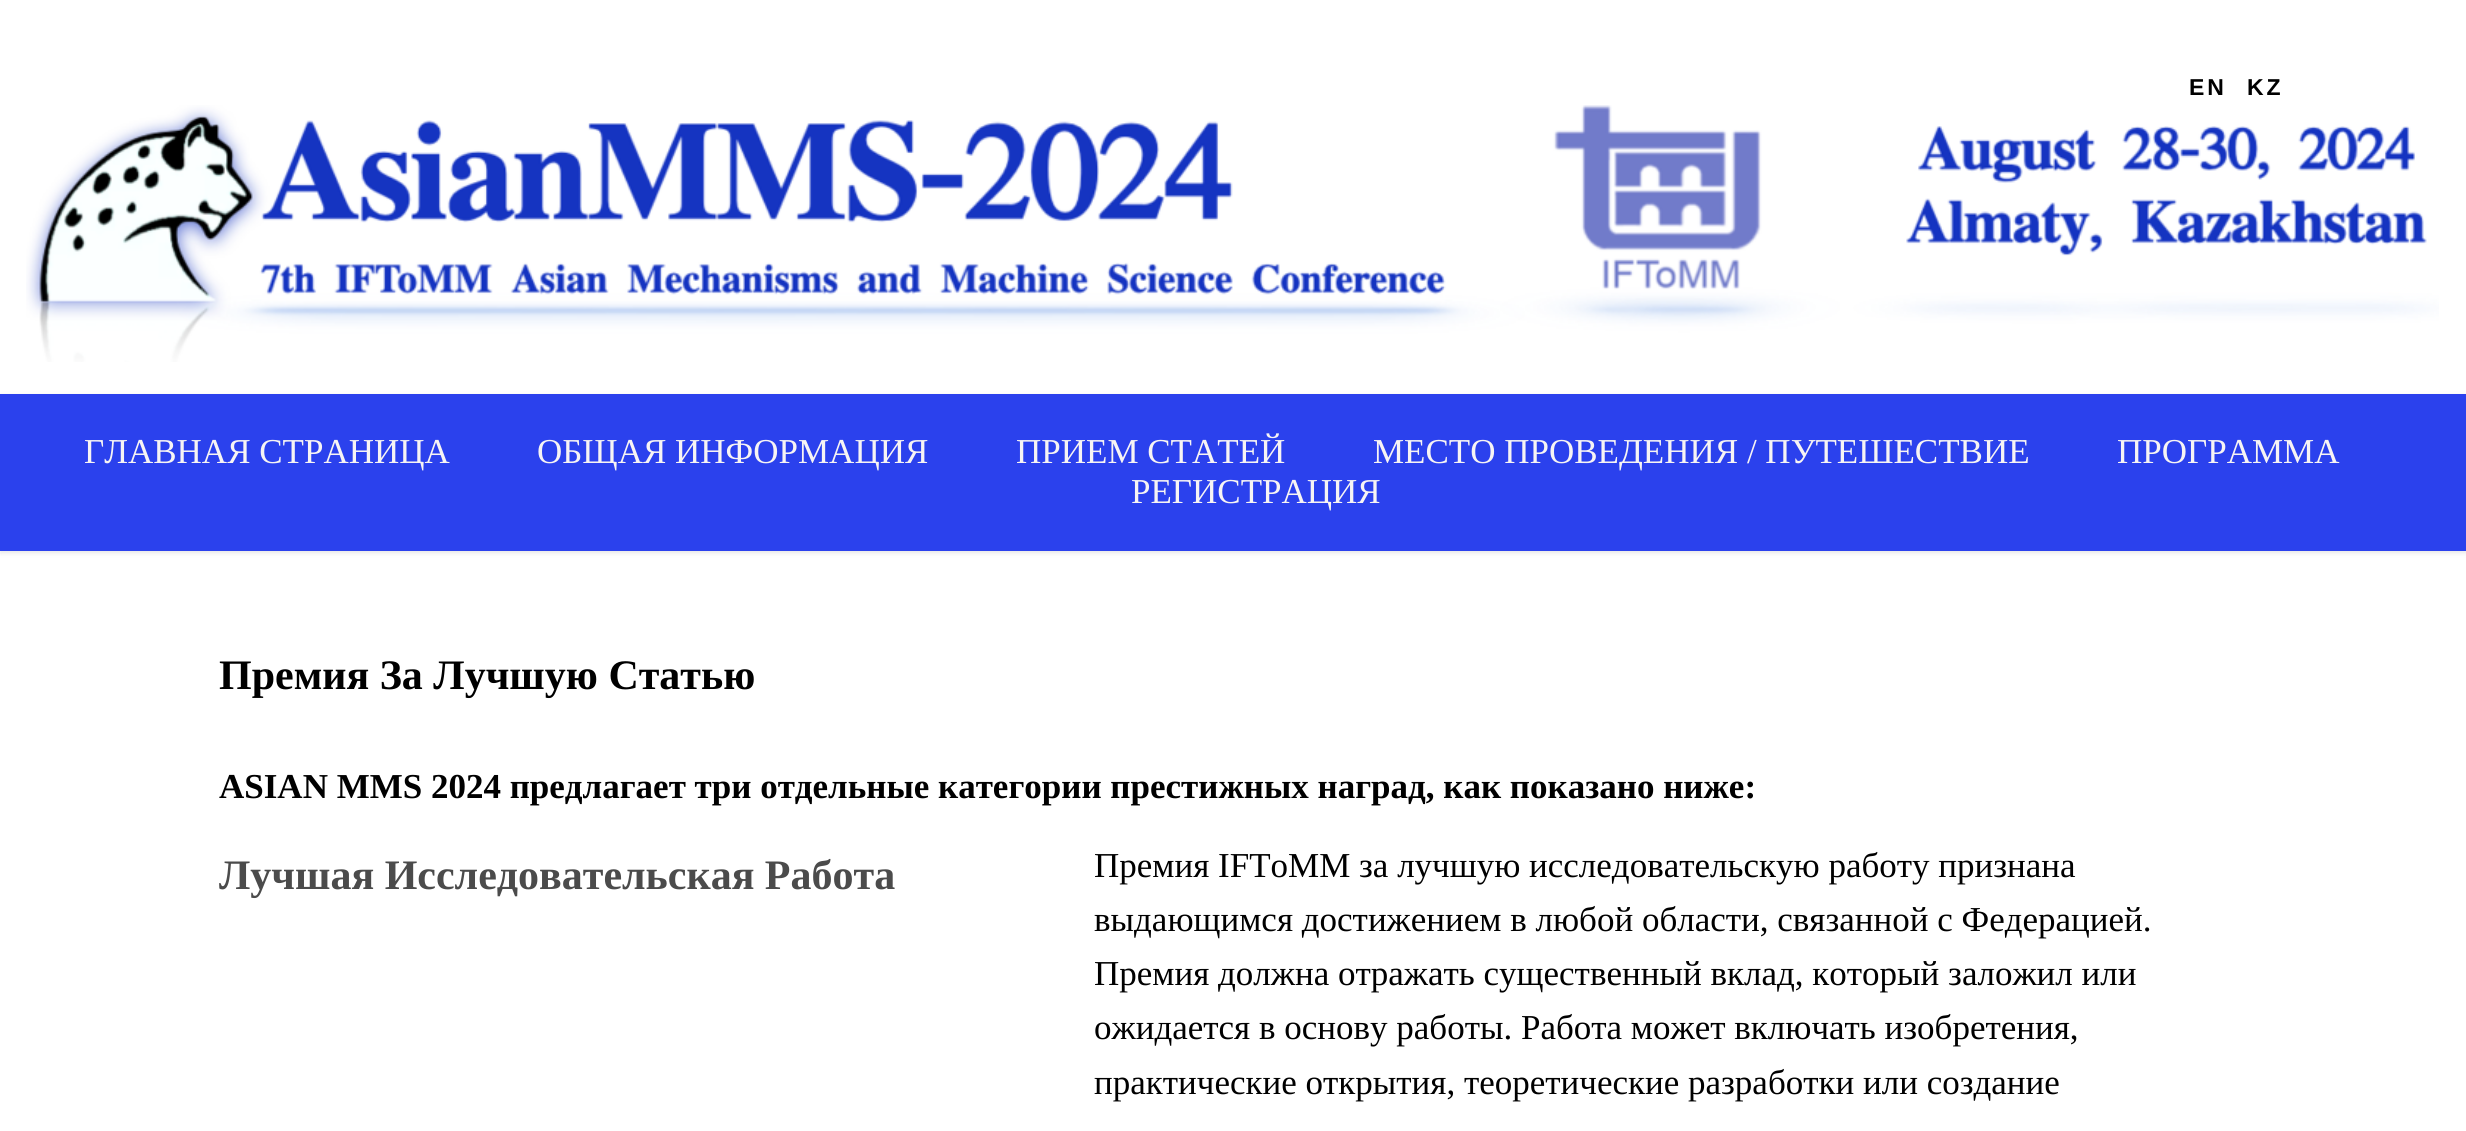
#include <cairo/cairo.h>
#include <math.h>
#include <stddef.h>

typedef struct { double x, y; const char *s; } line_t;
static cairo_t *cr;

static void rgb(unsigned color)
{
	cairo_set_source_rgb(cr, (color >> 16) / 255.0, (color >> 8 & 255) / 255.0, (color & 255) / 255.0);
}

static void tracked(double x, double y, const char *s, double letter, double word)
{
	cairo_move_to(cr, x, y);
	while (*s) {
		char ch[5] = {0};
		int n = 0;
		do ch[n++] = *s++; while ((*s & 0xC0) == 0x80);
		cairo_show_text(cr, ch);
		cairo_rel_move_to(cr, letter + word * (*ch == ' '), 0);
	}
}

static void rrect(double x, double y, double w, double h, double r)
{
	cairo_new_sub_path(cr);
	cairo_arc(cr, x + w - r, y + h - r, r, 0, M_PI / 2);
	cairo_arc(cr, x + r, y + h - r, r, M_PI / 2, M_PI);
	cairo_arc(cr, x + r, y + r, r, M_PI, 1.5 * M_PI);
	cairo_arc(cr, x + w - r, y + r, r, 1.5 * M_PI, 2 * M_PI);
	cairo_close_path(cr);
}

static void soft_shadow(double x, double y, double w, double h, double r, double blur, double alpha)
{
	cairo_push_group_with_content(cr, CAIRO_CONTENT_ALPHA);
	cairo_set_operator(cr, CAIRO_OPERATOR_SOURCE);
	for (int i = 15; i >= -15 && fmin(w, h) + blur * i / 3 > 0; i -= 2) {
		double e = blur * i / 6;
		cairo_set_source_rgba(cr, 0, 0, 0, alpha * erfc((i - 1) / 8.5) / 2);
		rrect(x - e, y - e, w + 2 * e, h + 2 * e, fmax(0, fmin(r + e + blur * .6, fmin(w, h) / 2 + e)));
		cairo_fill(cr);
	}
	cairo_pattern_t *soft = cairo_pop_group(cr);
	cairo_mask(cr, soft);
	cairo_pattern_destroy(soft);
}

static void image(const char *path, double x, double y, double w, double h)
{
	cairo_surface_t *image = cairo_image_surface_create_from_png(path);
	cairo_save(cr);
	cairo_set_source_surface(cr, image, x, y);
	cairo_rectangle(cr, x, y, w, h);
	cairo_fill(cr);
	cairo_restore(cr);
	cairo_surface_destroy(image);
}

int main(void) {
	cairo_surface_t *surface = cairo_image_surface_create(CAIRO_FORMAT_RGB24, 2466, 1131);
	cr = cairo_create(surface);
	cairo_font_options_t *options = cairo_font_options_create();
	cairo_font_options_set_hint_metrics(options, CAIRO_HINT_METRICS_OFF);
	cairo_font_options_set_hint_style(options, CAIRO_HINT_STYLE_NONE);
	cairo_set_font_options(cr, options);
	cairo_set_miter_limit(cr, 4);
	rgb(0xffffff);
	cairo_paint(cr);
	image("img/1.png", 26, 105, 2413, 257);
	rgb(0x000000);
	soft_shadow(0, 396, 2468, 157, 0, 2.5, 0.1);
	rgb(0x2b41ed);
	cairo_rectangle(cr, 0, 394, 2466, 157);
	cairo_fill(cr);
	cairo_select_font_face(cr, "Liberation Sans", CAIRO_FONT_SLANT_NORMAL, CAIRO_FONT_WEIGHT_BOLD);
	cairo_set_font_size(cr, 23);
	rgb(0x000000);
	tracked(2189, 95, "EN", 3, 0);
	tracked(2247, 95, "KZ", 3, 0);
	cairo_select_font_face(cr, "Liberation Serif", CAIRO_FONT_SLANT_NORMAL, CAIRO_FONT_WEIGHT_NORMAL);
	cairo_set_font_size(cr, 35);
	rgb(0xf7f4f4);
	{
		static const line_t items[] = {
			{84, 463, "ГЛАВНАЯ СТРАНИЦА"},
			{537, 463, "ОБЩАЯ ИНФОРМАЦИЯ"},
			{1016, 463, "ПРИЕМ СТАТЕЙ"},
			{1373, 463, "МЕСТО ПРОВЕДЕНИЯ / ПУТЕШЕСТВИЕ"},
			{2117, 463, "ПРОГРАММА"},
			{1131, 503, "РЕГИСТРАЦИЯ"},
		};
		for (size_t i = 0; i < sizeof items / sizeof *items; i++) {
			cairo_move_to(cr, items[i].x, items[i].y);
			cairo_show_text(cr, items[i].s);
		}
	}
	cairo_select_font_face(cr, "Liberation Serif", CAIRO_FONT_SLANT_NORMAL, CAIRO_FONT_WEIGHT_BOLD);
	cairo_set_font_size(cr, 42);
	rgb(0x000000);
	cairo_move_to(cr, 219, 689);
	cairo_show_text(cr, "Премия За Лучшую Статью");
	cairo_set_font_size(cr, 35);
	cairo_move_to(cr, 219, 798);
	cairo_show_text(cr, "ASIAN MMS 2024 предлагает три отдельные категории престижных наград, как показано ниже:");
	cairo_set_font_size(cr, 42);
	rgb(0x4b4b4b);
	cairo_move_to(cr, 219, 889);
	cairo_show_text(cr, "Лучшая Исследовательская Работа");
	cairo_select_font_face(cr, "Liberation Serif", CAIRO_FONT_SLANT_NORMAL, CAIRO_FONT_WEIGHT_NORMAL);
	cairo_set_font_size(cr, 35);
	rgb(0x000000);
	{
		static const line_t items[] = {
			{1094, 877, "Премия IFToMM за лучшую исследовательскую работу признана"},
			{1094, 931, "выдающимся достижением в любой области, связанной с Федерацией."},
			{1094, 985, "Премия должна отражать существенный вклад, который заложил или"},
			{1094, 1039, "ожидается в основу работы. Работа может включать изобретения,"},
			{1094, 1094, "практические открытия, теоретические разработки или создание"},
		};
		for (size_t i = 0; i < sizeof items / sizeof *items; i++) {
			cairo_move_to(cr, items[i].x, items[i].y);
			cairo_show_text(cr, items[i].s);
		}
	}
	cairo_surface_write_to_png(surface, "page.png");
	cairo_font_options_destroy(options);
	cairo_destroy(cr);
	cairo_surface_destroy(surface);
	return 0;
}
